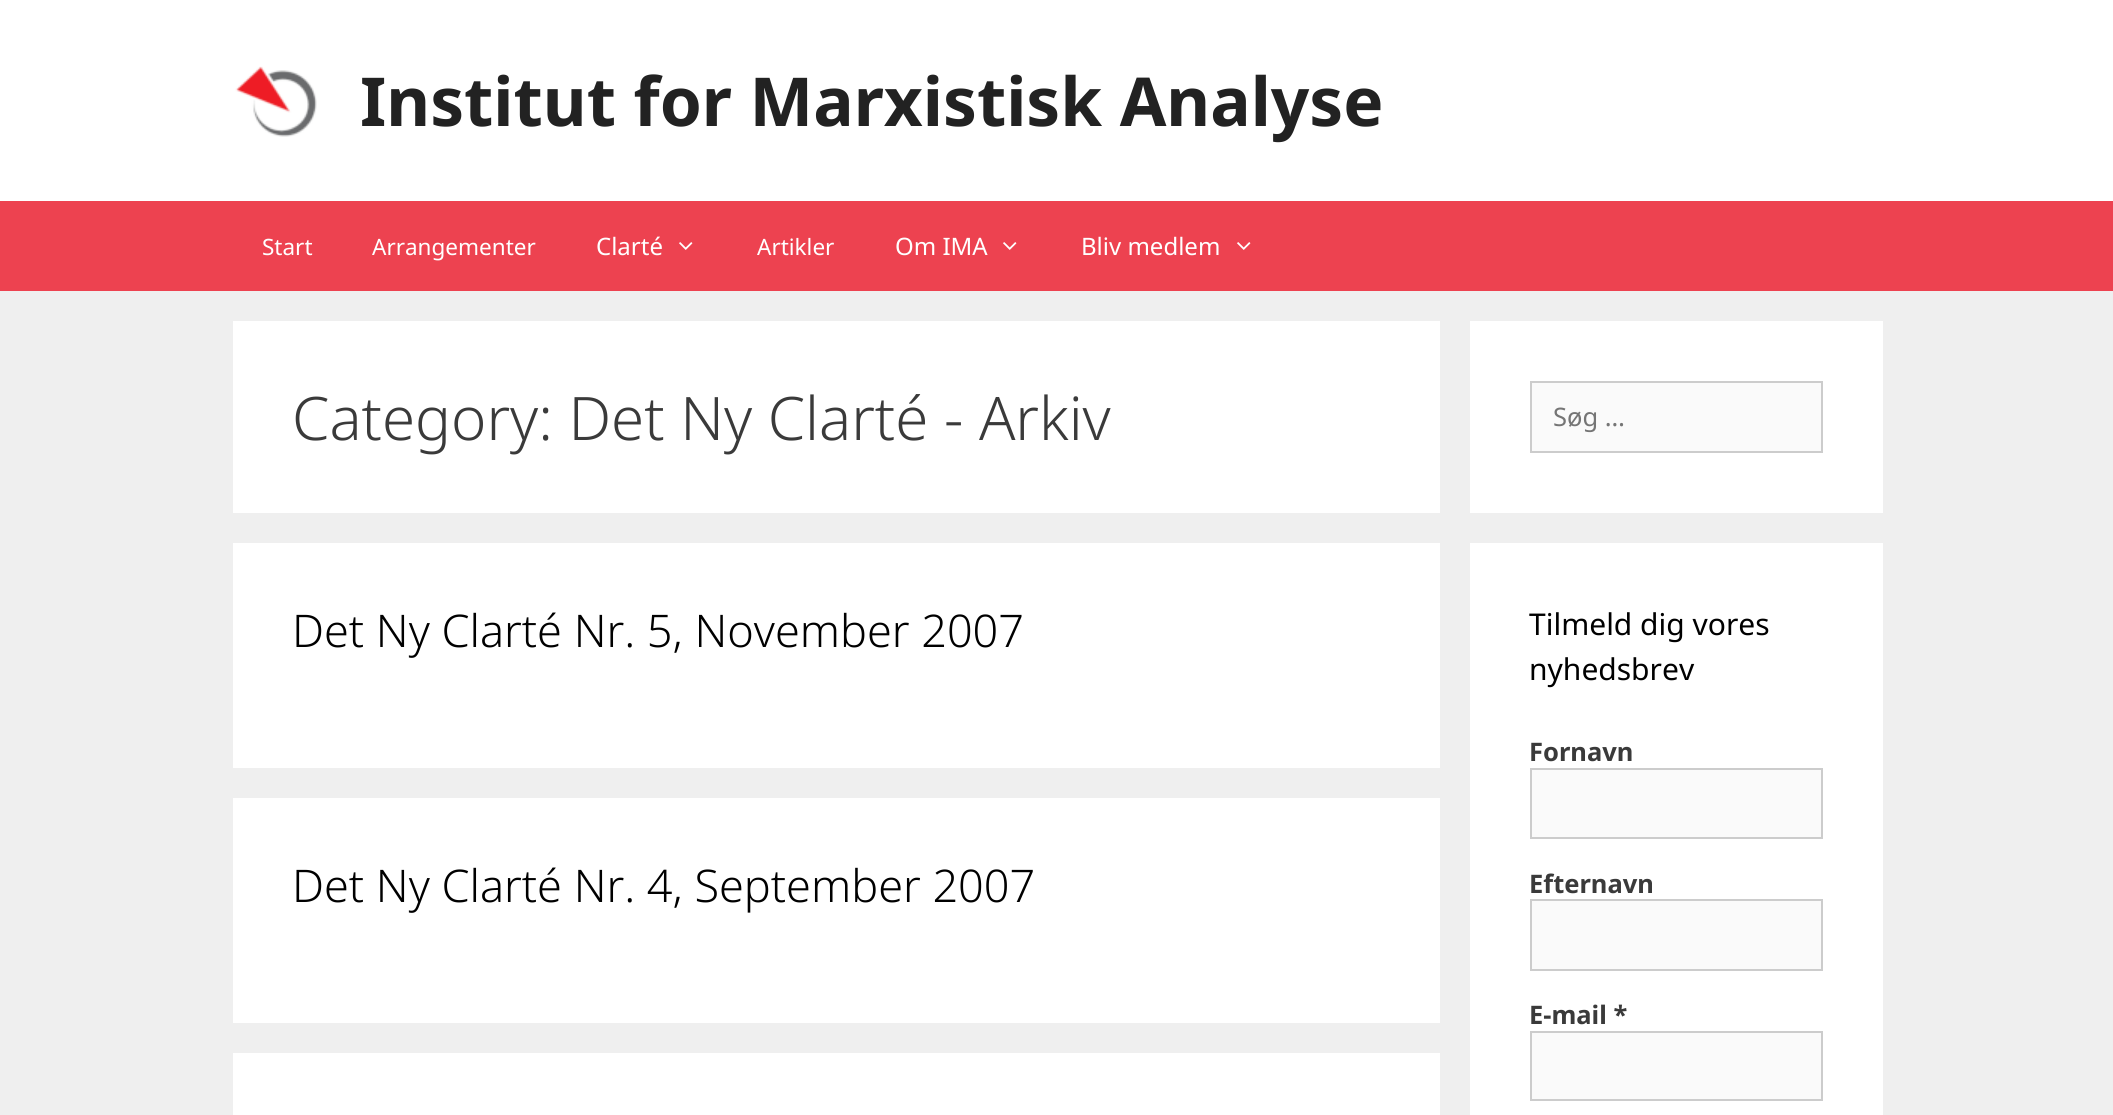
#include <cairo/cairo.h>
#include <math.h>
#include <stddef.h>

typedef struct { double x, y; const char *s; } line_t;
typedef struct { double x, y, w, h; unsigned color; } box_t;
static cairo_t *cr;

static void rgb(unsigned color)
{
	cairo_set_source_rgb(cr, (color >> 16) / 255.0, (color >> 8 & 255) / 255.0, (color & 255) / 255.0);
}

static void image(const char *path, double x, double y, double w, double h)
{
	cairo_surface_t *image = cairo_image_surface_create_from_png(path);
	cairo_save(cr);
	cairo_set_source_surface(cr, image, x, y);
	cairo_rectangle(cr, x, y, w, h);
	cairo_fill(cr);
	cairo_restore(cr);
	cairo_surface_destroy(image);
}

int main(void) {
	cairo_surface_t *surface = cairo_image_surface_create(CAIRO_FORMAT_RGB24, 2113, 1115);
	cr = cairo_create(surface);
	cairo_font_options_t *options = cairo_font_options_create();
	cairo_font_options_set_hint_metrics(options, CAIRO_HINT_METRICS_OFF);
	cairo_font_options_set_hint_style(options, CAIRO_HINT_STYLE_NONE);
	cairo_set_font_options(cr, options);
	cairo_set_miter_limit(cr, 4);
	rgb(0xefefef);
	cairo_paint(cr);
	rgb(0xffffff);
	cairo_rectangle(cr, 0, 0, 2113, 201);
	cairo_fill(cr);
	image("img/1.png", 235, 66, 82, 71);
	rgb(0xed4250);
	cairo_rectangle(cr, 0, 201, 2113, 90);
	cairo_fill(cr);
	image("img/2.png", 679, 242, 14, 8);
	image("img/2.png", 1003, 242, 14, 8);
	image("img/2.png", 1237, 242, 14, 8);
	{
		static const box_t items[] = {
			{233, 321, 1207, 192, 0xffffff},
			{233, 543, 1207, 225, 0xffffff},
			{233, 798, 1207, 225, 0xffffff},
			{233, 1053, 1207, 62, 0xffffff},
			{1470, 321, 413, 192, 0xffffff},
		};
		for (size_t i = 0; i < sizeof items / sizeof *items; i++) {
			rgb(items[i].color);
			cairo_rectangle(cr, items[i].x, items[i].y, items[i].w, items[i].h);
			cairo_fill(cr);
		}
	}
	rgb(0xfafafa);
	cairo_rectangle(cr, 1531, 382, 291, 70);
	cairo_fill_preserve(cr);
	rgb(0xcccccc);
	cairo_stroke(cr);
	rgb(0xffffff);
	cairo_rectangle(cr, 1470, 543, 413, 572);
	cairo_fill(cr);
	rgb(0xfafafa);
	cairo_rectangle(cr, 1531, 769, 291, 69);
	cairo_fill_preserve(cr);
	rgb(0xcccccc);
	cairo_stroke(cr);
	rgb(0xfafafa);
	cairo_rectangle(cr, 1531, 900, 291, 70);
	cairo_fill_preserve(cr);
	rgb(0xcccccc);
	cairo_stroke(cr);
	rgb(0xfafafa);
	cairo_rectangle(cr, 1531, 1032, 291, 68);
	cairo_fill_preserve(cr);
	rgb(0xcccccc);
	cairo_stroke(cr);
	cairo_select_font_face(cr, "Noto Sans", CAIRO_FONT_SLANT_NORMAL, CAIRO_FONT_WEIGHT_BOLD);
	cairo_set_font_size(cr, 67.5);
	rgb(0x222222);
	cairo_move_to(cr, 360, 126);
	cairo_show_text(cr, "Institut for Marxistisk Analyse");
	cairo_select_font_face(cr, "Noto Sans", CAIRO_FONT_SLANT_NORMAL, CAIRO_FONT_WEIGHT_NORMAL);
	cairo_set_font_size(cr, 22.5);
	rgb(0xffffff);
	cairo_move_to(cr, 262, 255);
	cairo_show_text(cr, "Start");
	cairo_move_to(cr, 372, 255);
	cairo_show_text(cr, "Arrangementer");
	cairo_set_font_size(cr, 24);
	cairo_move_to(cr, 596, 255);
	cairo_show_text(cr, "Clarté");
	cairo_set_font_size(cr, 22.5);
	cairo_move_to(cr, 757, 255);
	cairo_show_text(cr, "Artikler");
	cairo_set_font_size(cr, 24);
	cairo_move_to(cr, 895, 255);
	cairo_show_text(cr, "Om IMA");
	cairo_move_to(cr, 1081, 255);
	cairo_show_text(cr, "Bliv medlem");
	cairo_select_font_face(cr, "Noto Sans Light", CAIRO_FONT_SLANT_NORMAL, CAIRO_FONT_WEIGHT_NORMAL);
	cairo_set_font_size(cr, 60);
	rgb(0x3a3a3a);
	cairo_move_to(cr, 292, 440);
	cairo_show_text(cr, "Category: Det Ny Clarté - Arkiv");
	cairo_set_font_size(cr, 45);
	rgb(0x000000);
	cairo_move_to(cr, 292, 647);
	cairo_show_text(cr, "Det Ny Clarté Nr. 5, November 2007");
	cairo_move_to(cr, 292, 902);
	cairo_show_text(cr, "Det Ny Clarté Nr. 4, September 2007");
	cairo_select_font_face(cr, "Noto Sans", CAIRO_FONT_SLANT_NORMAL, CAIRO_FONT_WEIGHT_NORMAL);
	cairo_set_font_size(cr, 25.5);
	rgb(0x757575);
	cairo_move_to(cr, 1553, 426);
	cairo_show_text(cr, "Søg …");
	cairo_set_font_size(cr, 30);
	rgb(0x000000);
	cairo_move_to(cr, 1529, 635);
	cairo_show_text(cr, "Tilmeld dig vores");
	cairo_move_to(cr, 1529, 680);
	cairo_show_text(cr, "nyhedsbrev");
	cairo_select_font_face(cr, "Noto Sans", CAIRO_FONT_SLANT_NORMAL, CAIRO_FONT_WEIGHT_BOLD);
	cairo_set_font_size(cr, 25.5);
	rgb(0x3a3a3a);
	{
		static const line_t items[] = {
			{1529, 761, "Fornavn"},
			{1529, 893, "Efternavn"},
			{1529, 1024, "E-mail *"},
		};
		for (size_t i = 0; i < sizeof items / sizeof *items; i++) {
			cairo_move_to(cr, items[i].x, items[i].y);
			cairo_show_text(cr, items[i].s);
		}
	}
	cairo_surface_write_to_png(surface, "page.png");
	cairo_font_options_destroy(options);
	cairo_destroy(cr);
	cairo_surface_destroy(surface);
	return 0;
}
